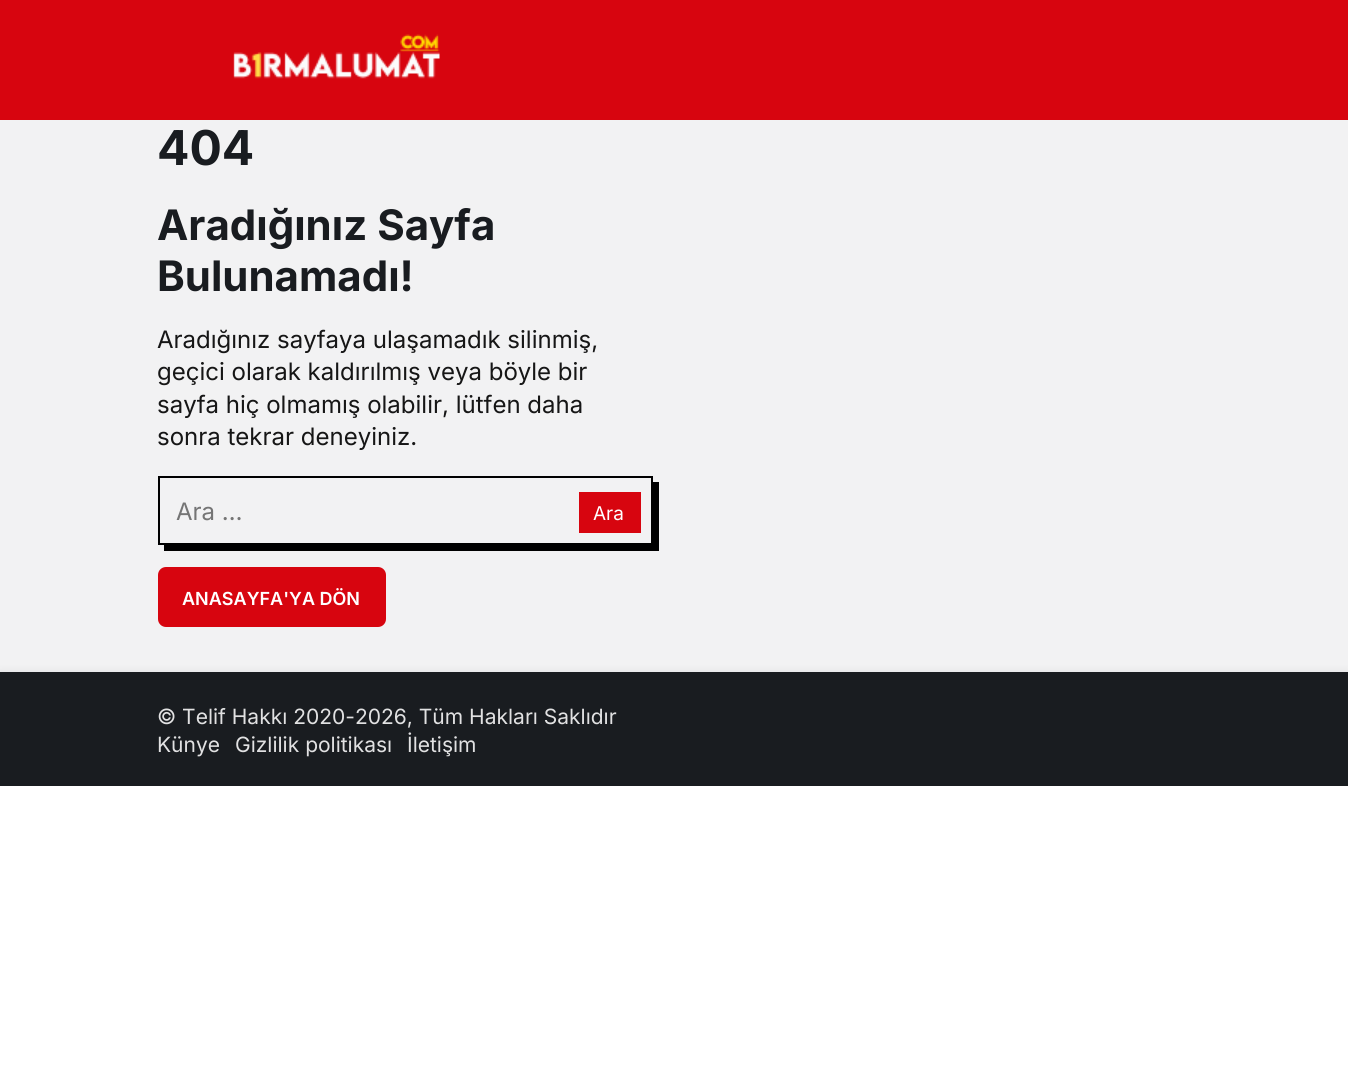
#include <cairo/cairo.h>
#include <math.h>
#include <stddef.h>

typedef struct { double x, y; const char *s; } line_t;
static cairo_t *cr;

static void rgb(unsigned color)
{
	cairo_set_source_rgb(cr, (color >> 16) / 255.0, (color >> 8 & 255) / 255.0, (color & 255) / 255.0);
}

static void rrect(double x, double y, double w, double h, double r)
{
	cairo_new_sub_path(cr);
	cairo_arc(cr, x + w - r, y + h - r, r, 0, M_PI / 2);
	cairo_arc(cr, x + r, y + h - r, r, M_PI / 2, M_PI);
	cairo_arc(cr, x + r, y + r, r, M_PI, 1.5 * M_PI);
	cairo_arc(cr, x + w - r, y + r, r, 1.5 * M_PI, 2 * M_PI);
	cairo_close_path(cr);
}

static void soft_shadow(double x, double y, double w, double h, double r, double blur, double alpha)
{
	cairo_push_group_with_content(cr, CAIRO_CONTENT_ALPHA);
	cairo_set_operator(cr, CAIRO_OPERATOR_SOURCE);
	for (int i = 15; i >= -15 && fmin(w, h) + blur * i / 3 > 0; i -= 2) {
		double e = blur * i / 6;
		cairo_set_source_rgba(cr, 0, 0, 0, alpha * erfc((i - 1) / 8.5) / 2);
		rrect(x - e, y - e, w + 2 * e, h + 2 * e, fmax(0, fmin(r + e + blur * .6, fmin(w, h) / 2 + e)));
		cairo_fill(cr);
	}
	cairo_pattern_t *soft = cairo_pop_group(cr);
	cairo_mask(cr, soft);
	cairo_pattern_destroy(soft);
}

static void image(const char *path, double x, double y, double w, double h)
{
	cairo_surface_t *image = cairo_image_surface_create_from_png(path);
	cairo_save(cr);
	cairo_set_source_surface(cr, image, x, y);
	cairo_rectangle(cr, x, y, w, h);
	cairo_fill(cr);
	cairo_restore(cr);
	cairo_surface_destroy(image);
}

int main(void) {
	cairo_surface_t *surface = cairo_image_surface_create(CAIRO_FORMAT_RGB24, 1348, 1082);
	cr = cairo_create(surface);
	cairo_font_options_t *options = cairo_font_options_create();
	cairo_font_options_set_hint_metrics(options, CAIRO_HINT_METRICS_OFF);
	cairo_font_options_set_hint_style(options, CAIRO_HINT_STYLE_NONE);
	cairo_set_font_options(cr, options);
	cairo_set_miter_limit(cr, 4);
	rgb(0xffffff);
	cairo_paint(cr);
	rgb(0xf2f2f3);
	cairo_rectangle(cr, 0, 120, 1348, 552);
	cairo_fill(cr);
	rgb(0xd7050f);
	cairo_rectangle(cr, 0, 0, 1348, 120);
	cairo_fill(cr);
	image("img/1.png", 233, 34, 207, 45);
	rgb(0x000000);
	cairo_new_path(cr);
	cairo_move_to(cr, 164, 544);
	cairo_line_to(cr, 164, 551);
	cairo_line_to(cr, 659, 551);
	cairo_line_to(cr, 659, 482);
	cairo_line_to(cr, 652, 482);
	cairo_line_to(cr, 652, 544);
	cairo_close_path(cr);
	cairo_fill(cr);
	cairo_rectangle(cr, 159, 477, 493, 67);
	cairo_stroke(cr);
	rgb(0xd7050f);
	cairo_rectangle(cr, 579, 492, 62, 41);
	cairo_fill(cr);
	rrect(158, 567, 228, 60, 8);
	cairo_fill(cr);
	cairo_save(cr);
	cairo_rectangle(cr, 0, 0, 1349, 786);
	cairo_clip(cr);
	rgb(0x32353d);
	soft_shadow(0, 672, 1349, 114, 0, 4, 0.1);
	cairo_restore(cr);
	rgb(0x191c20);
	cairo_rectangle(cr, 0, 672, 1348, 114);
	cairo_fill(cr);
	cairo_select_font_face(cr, "Inter", CAIRO_FONT_SLANT_NORMAL, CAIRO_FONT_WEIGHT_BOLD);
	cairo_set_font_size(cr, 48);
	cairo_move_to(cr, 157, 165);
	cairo_show_text(cr, "404");
	cairo_set_font_size(cr, 42);
	cairo_move_to(cr, 157, 240);
	cairo_show_text(cr, "Aradığınız Sayfa");
	cairo_move_to(cr, 157, 291);
	cairo_show_text(cr, "Bulunamadı!");
	cairo_select_font_face(cr, "Inter", CAIRO_FONT_SLANT_NORMAL, CAIRO_FONT_WEIGHT_NORMAL);
	cairo_set_font_size(cr, 24);
	rgb(0x161616);
	{
		static const line_t items[] = {
			{157, 348, "Aradığınız sayfaya ulaşamadık silinmiş,"},
			{157, 380, "geçici olarak kaldırılmış veya böyle bir"},
			{157, 413, "sayfa hiç olmamış olabilir, lütfen daha"},
			{157, 445, "sonra tekrar deneyiniz."},
		};
		for (size_t i = 0; i < sizeof items / sizeof *items; i++) {
			cairo_move_to(cr, items[i].x, items[i].y);
			cairo_show_text(cr, items[i].s);
		}
	}
	rgb(0x757575);
	cairo_move_to(cr, 176, 520);
	cairo_show_text(cr, "Ara …");
	cairo_set_font_size(cr, 19);
	rgb(0xffffff);
	cairo_move_to(cr, 593, 520);
	cairo_show_text(cr, "Ara");
	cairo_select_font_face(cr, "Inter SemiBold", CAIRO_FONT_SLANT_NORMAL, CAIRO_FONT_WEIGHT_NORMAL);
	cairo_set_font_size(cr, 18);
	cairo_move_to(cr, 182, 605);
	cairo_show_text(cr, "ANASAYFA'YA DÖN");
	cairo_select_font_face(cr, "Inter", CAIRO_FONT_SLANT_NORMAL, CAIRO_FONT_WEIGHT_NORMAL);
	cairo_set_font_size(cr, 21);
	rgb(0xe1e1e2);
	{
		static const line_t items[] = {
			{157, 724, "© Telif Hakkı 2020-2026, Tüm Hakları Saklıdır"},
			{157, 752, "Künye"},
			{235, 752, "Gizlilik politikası"},
			{407, 752, "İletişim"},
		};
		for (size_t i = 0; i < sizeof items / sizeof *items; i++) {
			cairo_move_to(cr, items[i].x, items[i].y);
			cairo_show_text(cr, items[i].s);
		}
	}
	cairo_surface_write_to_png(surface, "page.png");
	cairo_font_options_destroy(options);
	cairo_destroy(cr);
	cairo_surface_destroy(surface);
	return 0;
}
